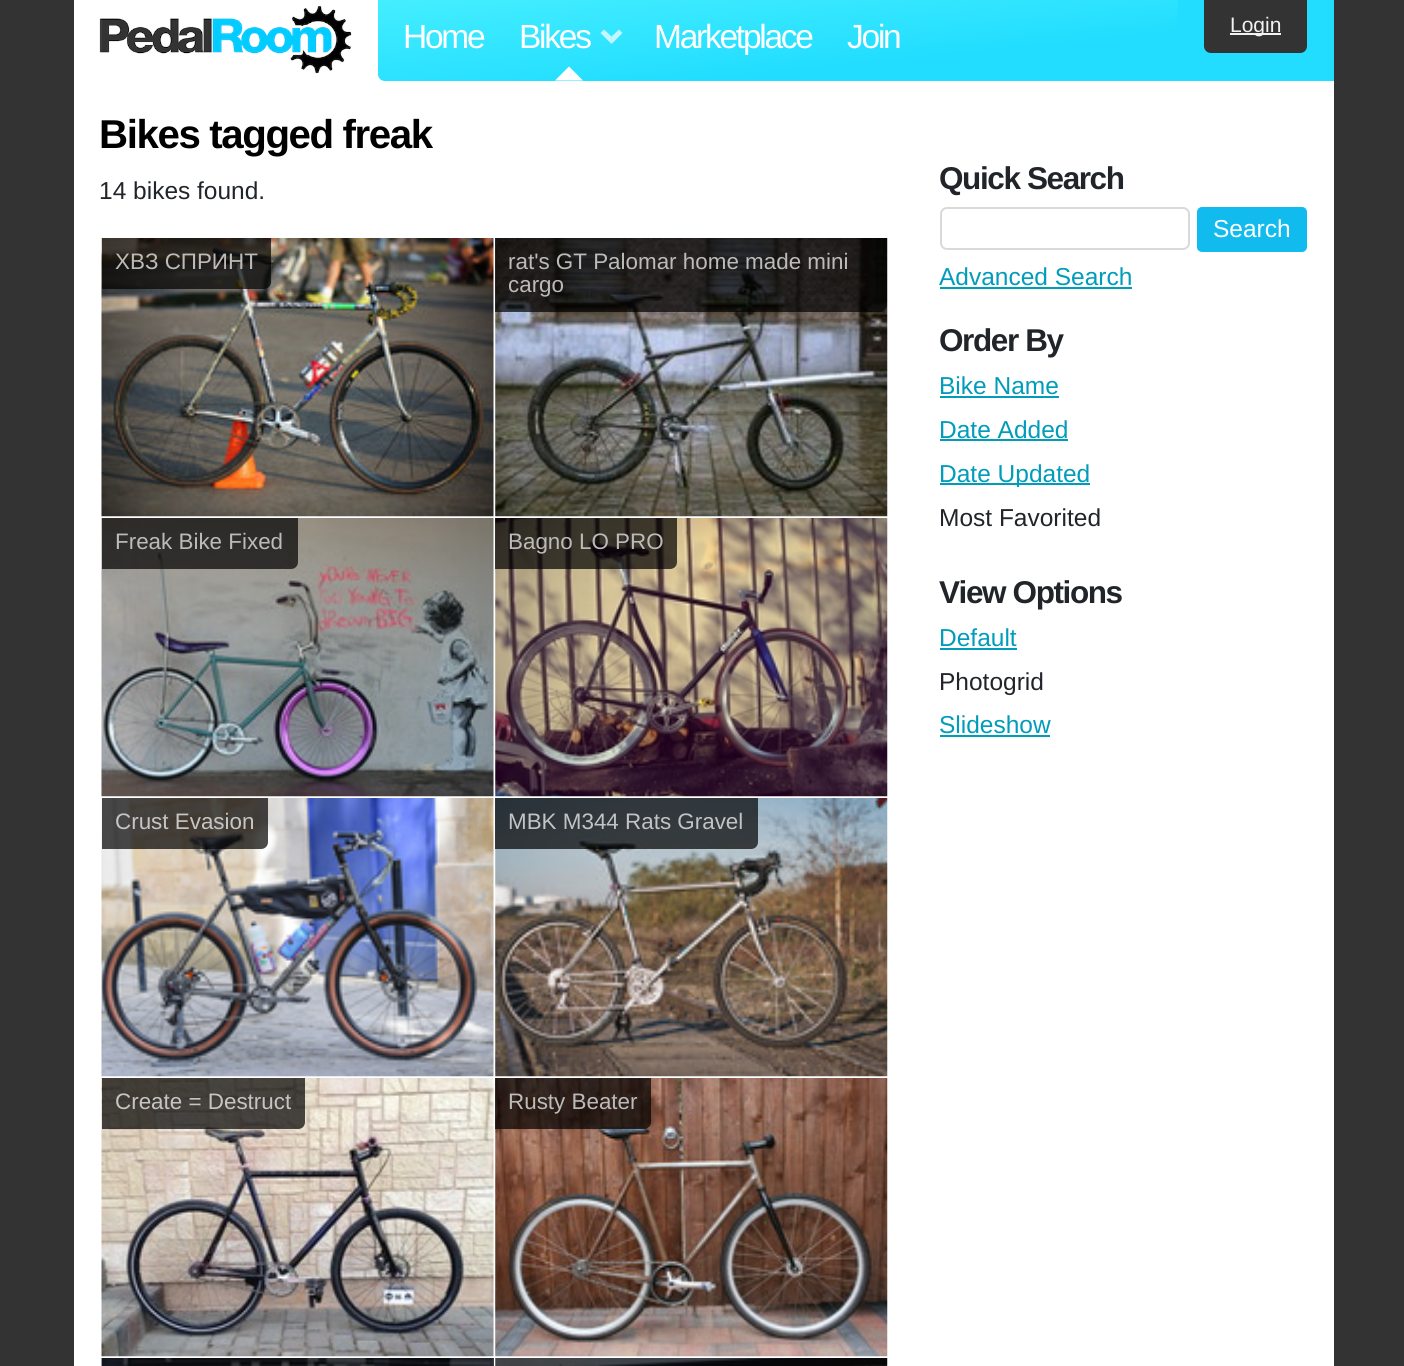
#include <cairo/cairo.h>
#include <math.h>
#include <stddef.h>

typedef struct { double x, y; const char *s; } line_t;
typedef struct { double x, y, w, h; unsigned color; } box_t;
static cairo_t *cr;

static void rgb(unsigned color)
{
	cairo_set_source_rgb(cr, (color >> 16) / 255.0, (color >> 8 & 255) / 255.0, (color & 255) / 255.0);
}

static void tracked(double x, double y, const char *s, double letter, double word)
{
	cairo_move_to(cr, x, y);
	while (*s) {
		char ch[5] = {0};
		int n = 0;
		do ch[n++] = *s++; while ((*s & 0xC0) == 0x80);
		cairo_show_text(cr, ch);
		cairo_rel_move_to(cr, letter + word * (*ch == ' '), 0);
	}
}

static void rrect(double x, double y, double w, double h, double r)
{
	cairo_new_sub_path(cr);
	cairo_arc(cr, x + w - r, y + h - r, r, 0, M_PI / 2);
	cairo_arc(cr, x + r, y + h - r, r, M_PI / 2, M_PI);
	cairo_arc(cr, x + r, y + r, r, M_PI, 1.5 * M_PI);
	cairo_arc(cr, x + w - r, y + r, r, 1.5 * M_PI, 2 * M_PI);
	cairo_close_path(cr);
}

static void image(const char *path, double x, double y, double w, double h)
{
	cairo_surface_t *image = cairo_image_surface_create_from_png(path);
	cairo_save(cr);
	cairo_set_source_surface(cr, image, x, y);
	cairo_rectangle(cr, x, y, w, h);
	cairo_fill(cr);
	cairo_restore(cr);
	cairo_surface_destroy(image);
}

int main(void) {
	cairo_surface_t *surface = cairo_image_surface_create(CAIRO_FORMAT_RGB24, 1404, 1366);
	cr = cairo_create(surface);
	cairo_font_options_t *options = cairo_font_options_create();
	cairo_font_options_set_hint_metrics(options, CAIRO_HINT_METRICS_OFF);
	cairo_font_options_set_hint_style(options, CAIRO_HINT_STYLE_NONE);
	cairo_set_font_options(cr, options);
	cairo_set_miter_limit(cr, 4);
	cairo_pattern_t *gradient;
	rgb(0x333333);
	cairo_paint(cr);
	rgb(0xffffff);
	cairo_rectangle(cr, 74, 0, 1260, 1366);
	cairo_fill(cr);
	image("img/1.png", 99, 6, 253, 68);
	gradient = cairo_pattern_create_linear(770, -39, 786, 120);
	cairo_pattern_add_color_stop_rgba(gradient, 0, 0.267, 0.933, 1, 1);
	cairo_pattern_add_color_stop_rgba(gradient, 0.7, 0.133, 0.867, 1, 1);
	cairo_set_source(cr, gradient);
	cairo_pattern_destroy(gradient);
	cairo_new_path(cr);
	cairo_move_to(cr, 378, 0);
	cairo_line_to(cr, 1178, 0);
	cairo_line_to(cr, 1178, 81);
	cairo_line_to(cr, 385, 81);
	cairo_curve_to(cr, 381, 81, 378, 78, 378, 74);
	cairo_close_path(cr);
	cairo_fill(cr);
	cairo_set_source_rgba(cr, 1, 1, 1, 0.7);
	cairo_new_path(cr);
	cairo_move_to(cr, 622.5, 33);
	cairo_line_to(cr, 611.5, 44);
	cairo_line_to(cr, 611.5, 36.5);
	cairo_line_to(cr, 619, 29.5);
	cairo_close_path(cr);
	cairo_fill(cr);
	cairo_new_path(cr);
	cairo_move_to(cr, 611.5, 44);
	cairo_line_to(cr, 600.5, 33);
	cairo_line_to(cr, 604, 29.5);
	cairo_line_to(cr, 611.5, 36.5);
	cairo_close_path(cr);
	cairo_fill(cr);
	rgb(0xffffff);
	cairo_new_path(cr);
	cairo_move_to(cr, 583, 80.5);
	cairo_line_to(cr, 555, 80.5);
	cairo_line_to(cr, 569, 66.5);
	cairo_close_path(cr);
	cairo_fill(cr);
	rgb(0x22ddff);
	cairo_rectangle(cr, 1178, 0, 156, 81);
	cairo_fill(cr);
	rgb(0x333333);
	cairo_new_path(cr);
	cairo_move_to(cr, 1204, 0);
	cairo_line_to(cr, 1307, 0);
	cairo_line_to(cr, 1307, 46);
	cairo_curve_to(cr, 1307, 50, 1304, 53, 1300, 53);
	cairo_line_to(cr, 1211, 53);
	cairo_curve_to(cr, 1207, 53, 1204, 50, 1204, 46);
	cairo_close_path(cr);
	cairo_fill(cr);
	rgb(0xf2f2f2);
	cairo_rectangle(cr, 1230, 33, 51, 2);
	cairo_fill(cr);
	rgb(0x4d4d4d);
	cairo_rectangle(cr, 493, 1358, 1, 8);
	cairo_fill(cr);
	image("img/2.png", 101, 238, 393, 279);
	cairo_set_source_rgba(cr, 0, 0, 0, 0.7);
	cairo_new_path(cr);
	cairo_move_to(cr, 102, 238);
	cairo_line_to(cr, 271, 238);
	cairo_line_to(cr, 271, 282);
	cairo_curve_to(cr, 271, 286, 268, 289, 264, 289);
	cairo_line_to(cr, 102, 289);
	cairo_close_path(cr);
	cairo_fill(cr);
	image("img/3.png", 495, 238, 393, 279);
	cairo_new_path(cr);
	cairo_move_to(cr, 495, 238);
	cairo_line_to(cr, 887, 238);
	cairo_line_to(cr, 887, 305);
	cairo_curve_to(cr, 887, 309, 884, 312, 880, 312);
	cairo_line_to(cr, 495, 312);
	cairo_close_path(cr);
	cairo_fill(cr);
	image("img/4.png", 101, 518, 393, 279);
	cairo_new_path(cr);
	cairo_move_to(cr, 102, 518);
	cairo_line_to(cr, 298, 518);
	cairo_line_to(cr, 298, 562);
	cairo_curve_to(cr, 298, 566, 295, 569, 291, 569);
	cairo_line_to(cr, 102, 569);
	cairo_close_path(cr);
	cairo_fill(cr);
	image("img/5.png", 495, 518, 393, 279);
	cairo_new_path(cr);
	cairo_move_to(cr, 495, 518);
	cairo_line_to(cr, 677, 518);
	cairo_line_to(cr, 677, 562);
	cairo_curve_to(cr, 677, 566, 674, 569, 670, 569);
	cairo_line_to(cr, 495, 569);
	cairo_close_path(cr);
	cairo_fill(cr);
	image("img/6.png", 101, 798, 393, 279);
	cairo_new_path(cr);
	cairo_move_to(cr, 102, 798);
	cairo_line_to(cr, 268, 798);
	cairo_line_to(cr, 268, 842);
	cairo_curve_to(cr, 268, 846, 265, 849, 261, 849);
	cairo_line_to(cr, 102, 849);
	cairo_close_path(cr);
	cairo_fill(cr);
	image("img/7.png", 495, 798, 393, 279);
	cairo_new_path(cr);
	cairo_move_to(cr, 495, 798);
	cairo_line_to(cr, 758, 798);
	cairo_line_to(cr, 758, 842);
	cairo_curve_to(cr, 758, 846, 755, 849, 751, 849);
	cairo_line_to(cr, 495, 849);
	cairo_close_path(cr);
	cairo_fill(cr);
	image("img/8.png", 101, 1078, 393, 279);
	cairo_new_path(cr);
	cairo_move_to(cr, 102, 1078);
	cairo_line_to(cr, 305, 1078);
	cairo_line_to(cr, 305, 1122);
	cairo_curve_to(cr, 305, 1126, 302, 1129, 298, 1129);
	cairo_line_to(cr, 102, 1129);
	cairo_close_path(cr);
	cairo_fill(cr);
	image("img/9.png", 495, 1078, 393, 279);
	cairo_new_path(cr);
	cairo_move_to(cr, 495, 1078);
	cairo_line_to(cr, 651, 1078);
	cairo_line_to(cr, 651, 1122);
	cairo_curve_to(cr, 651, 1126, 648, 1129, 644, 1129);
	cairo_line_to(cr, 495, 1129);
	cairo_close_path(cr);
	cairo_fill(cr);
	image("img/10.png", 101, 1358, 393, 8);
	image("img/11.png", 495, 1358, 393, 8);
	rrect(941, 208, 248, 41, 6);
	rgb(0xd9d9d9);
	cairo_stroke(cr);
	rgb(0x11bbee);
	rrect(1198, 208, 108, 43, 4);
	cairo_fill_preserve(cr);
	cairo_stroke(cr);
	{
		static const box_t items[] = {
			{940, 287, 192, 2, 0x009cba},
			{940, 396, 119, 2, 0x009cba},
			{940, 439, 128, 2, 0x009cba},
			{940, 483, 150, 2, 0x009cba},
			{940, 648, 77, 2, 0x009cba},
			{940, 735, 110, 2, 0x009cba},
		};
		for (size_t i = 0; i < sizeof items / sizeof *items; i++) {
			rgb(items[i].color);
			cairo_rectangle(cr, items[i].x, items[i].y, items[i].w, items[i].h);
			cairo_fill(cr);
		}
	}
	cairo_select_font_face(cr, "Liberation Sans", CAIRO_FONT_SLANT_NORMAL, CAIRO_FONT_WEIGHT_NORMAL);
	cairo_set_font_size(cr, 33.5);
	rgb(0xffffff);
	{
		static const line_t items[] = {
			{403, 48, "Home"},
			{519, 48, "Bikes"},
			{654, 48, "Marketplace"},
			{847, 48, "Join"},
		};
		for (size_t i = 0; i < sizeof items / sizeof *items; i++) {
			tracked(items[i].x, items[i].y, items[i].s, -2.25, 0);
		}
	}
	cairo_set_font_size(cr, 21);
	rgb(0xf2f2f2);
	cairo_move_to(cr, 1230, 32);
	cairo_show_text(cr, "Login");
	cairo_select_font_face(cr, "Liberation Sans", CAIRO_FONT_SLANT_NORMAL, CAIRO_FONT_WEIGHT_BOLD);
	cairo_set_font_size(cr, 40.25);
	rgb(0x000000);
	tracked(99, 148, "Bikes tagged freak", -1.4, 0);
	cairo_select_font_face(cr, "Liberation Sans", CAIRO_FONT_SLANT_NORMAL, CAIRO_FONT_WEIGHT_NORMAL);
	cairo_set_font_size(cr, 24.5);
	rgb(0x212529);
	cairo_move_to(cr, 99, 199);
	cairo_show_text(cr, "14 bikes found.");
	cairo_set_font_size(cr, 22.4);
	rgb(0xbcbbba);
	{
		static const line_t items[] = {
			{115, 269, "ХВЗ СПРИНТ"},
			{508, 269, "rat's GT Palomar home made mini"},
			{508, 292, "cargo"},
			{115, 549, "Freak Bike Fixed"},
			{508, 549, "Bagno LO PRO"},
		};
		for (size_t i = 0; i < sizeof items / sizeof *items; i++) {
			cairo_move_to(cr, items[i].x, items[i].y);
			cairo_show_text(cr, items[i].s);
		}
	}
	rgb(0xc7c5c4);
	cairo_move_to(cr, 115, 829);
	cairo_show_text(cr, "Crust Evasion");
	rgb(0xc1c3c5);
	cairo_move_to(cr, 508, 829);
	cairo_show_text(cr, "MBK M344 Rats Gravel");
	rgb(0xc7c5c4);
	cairo_move_to(cr, 115, 1109);
	cairo_show_text(cr, "Create = Destruct");
	rgb(0xbcbbba);
	cairo_move_to(cr, 508, 1109);
	cairo_show_text(cr, "Rusty Beater");
	cairo_select_font_face(cr, "Liberation Sans", CAIRO_FONT_SLANT_NORMAL, CAIRO_FONT_WEIGHT_BOLD);
	cairo_set_font_size(cr, 31.5);
	rgb(0x212529);
	tracked(939, 189, "Quick Search", -1.4, 0);
	cairo_select_font_face(cr, "Liberation Sans", CAIRO_FONT_SLANT_NORMAL, CAIRO_FONT_WEIGHT_NORMAL);
	cairo_set_font_size(cr, 24.5);
	rgb(0xffffff);
	cairo_move_to(cr, 1213, 237);
	cairo_show_text(cr, "Search");
	rgb(0x009cba);
	cairo_move_to(cr, 939, 285);
	cairo_show_text(cr, "Advanced Search");
	cairo_select_font_face(cr, "Liberation Sans", CAIRO_FONT_SLANT_NORMAL, CAIRO_FONT_WEIGHT_BOLD);
	cairo_set_font_size(cr, 31.5);
	rgb(0x212529);
	tracked(939, 351, "Order By", -1.4, 0);
	cairo_select_font_face(cr, "Liberation Sans", CAIRO_FONT_SLANT_NORMAL, CAIRO_FONT_WEIGHT_NORMAL);
	cairo_set_font_size(cr, 24.5);
	rgb(0x009cba);
	{
		static const line_t items[] = {
			{939, 394, "Bike Name"},
			{939, 438, "Date Added"},
			{939, 482, "Date Updated"},
		};
		for (size_t i = 0; i < sizeof items / sizeof *items; i++) {
			cairo_move_to(cr, items[i].x, items[i].y);
			cairo_show_text(cr, items[i].s);
		}
	}
	rgb(0x212529);
	cairo_move_to(cr, 939, 526);
	cairo_show_text(cr, "Most Favorited");
	cairo_select_font_face(cr, "Liberation Sans", CAIRO_FONT_SLANT_NORMAL, CAIRO_FONT_WEIGHT_BOLD);
	cairo_set_font_size(cr, 31.5);
	tracked(939, 603, "View Options", -1.4, 0);
	cairo_select_font_face(cr, "Liberation Sans", CAIRO_FONT_SLANT_NORMAL, CAIRO_FONT_WEIGHT_NORMAL);
	cairo_set_font_size(cr, 24.5);
	rgb(0x009cba);
	cairo_move_to(cr, 939, 646);
	cairo_show_text(cr, "Default");
	rgb(0x212529);
	cairo_move_to(cr, 939, 690);
	cairo_show_text(cr, "Photogrid");
	rgb(0x009cba);
	cairo_move_to(cr, 939, 733);
	cairo_show_text(cr, "Slideshow");
	cairo_surface_write_to_png(surface, "page.png");
	cairo_font_options_destroy(options);
	cairo_destroy(cr);
	cairo_surface_destroy(surface);
	return 0;
}
